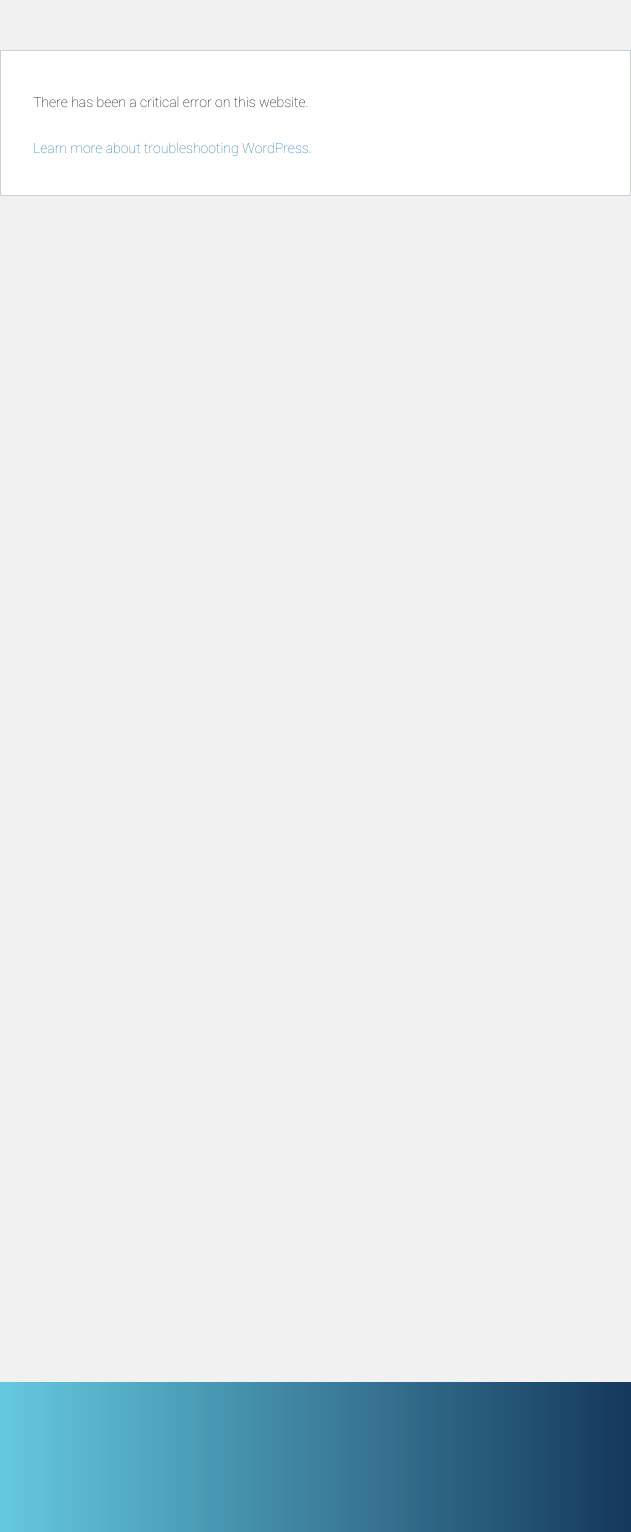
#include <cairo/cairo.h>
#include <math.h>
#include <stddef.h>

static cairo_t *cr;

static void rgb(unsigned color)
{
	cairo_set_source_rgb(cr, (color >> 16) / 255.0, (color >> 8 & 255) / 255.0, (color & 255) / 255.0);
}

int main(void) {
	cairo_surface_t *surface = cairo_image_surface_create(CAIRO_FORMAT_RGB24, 631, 1532);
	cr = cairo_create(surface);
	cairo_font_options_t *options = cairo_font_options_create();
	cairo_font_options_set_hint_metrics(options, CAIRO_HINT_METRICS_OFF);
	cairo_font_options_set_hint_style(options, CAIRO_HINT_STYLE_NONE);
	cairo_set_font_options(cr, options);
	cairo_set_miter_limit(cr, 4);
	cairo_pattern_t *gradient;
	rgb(0xf1f1f1);
	cairo_paint(cr);
	rgb(0xffffff);
	cairo_rectangle(cr, 0.5, 50.5, 630, 145);
	cairo_fill_preserve(cr);
	rgb(0xccd0d4);
	cairo_set_line_width(cr, 1);
	cairo_stroke(cr);
	gradient = cairo_pattern_create_linear(0, 1457, 631, 1457);
	cairo_pattern_add_color_stop_rgba(gradient, 0, 0.392, 0.788, 0.875, 1);
	cairo_pattern_add_color_stop_rgba(gradient, 1, 0.082, 0.22, 0.361, 1);
	cairo_set_source(cr, gradient);
	cairo_pattern_destroy(gradient);
	cairo_rectangle(cr, 0, 1382, 631, 150);
	cairo_fill(cr);
	cairo_select_font_face(cr, "Roboto Thin", CAIRO_FONT_SLANT_NORMAL, CAIRO_FONT_WEIGHT_NORMAL);
	cairo_set_font_size(cr, 14);
	rgb(0x000000);
	cairo_move_to(cr, 33, 107);
	cairo_show_text(cr, "There has been a critical error on this website.");
	rgb(0x2271b1);
	cairo_move_to(cr, 33, 153);
	cairo_show_text(cr, "Learn more about troubleshooting WordPress.");
	cairo_surface_write_to_png(surface, "page.png");
	cairo_font_options_destroy(options);
	cairo_destroy(cr);
	cairo_surface_destroy(surface);
	return 0;
}
